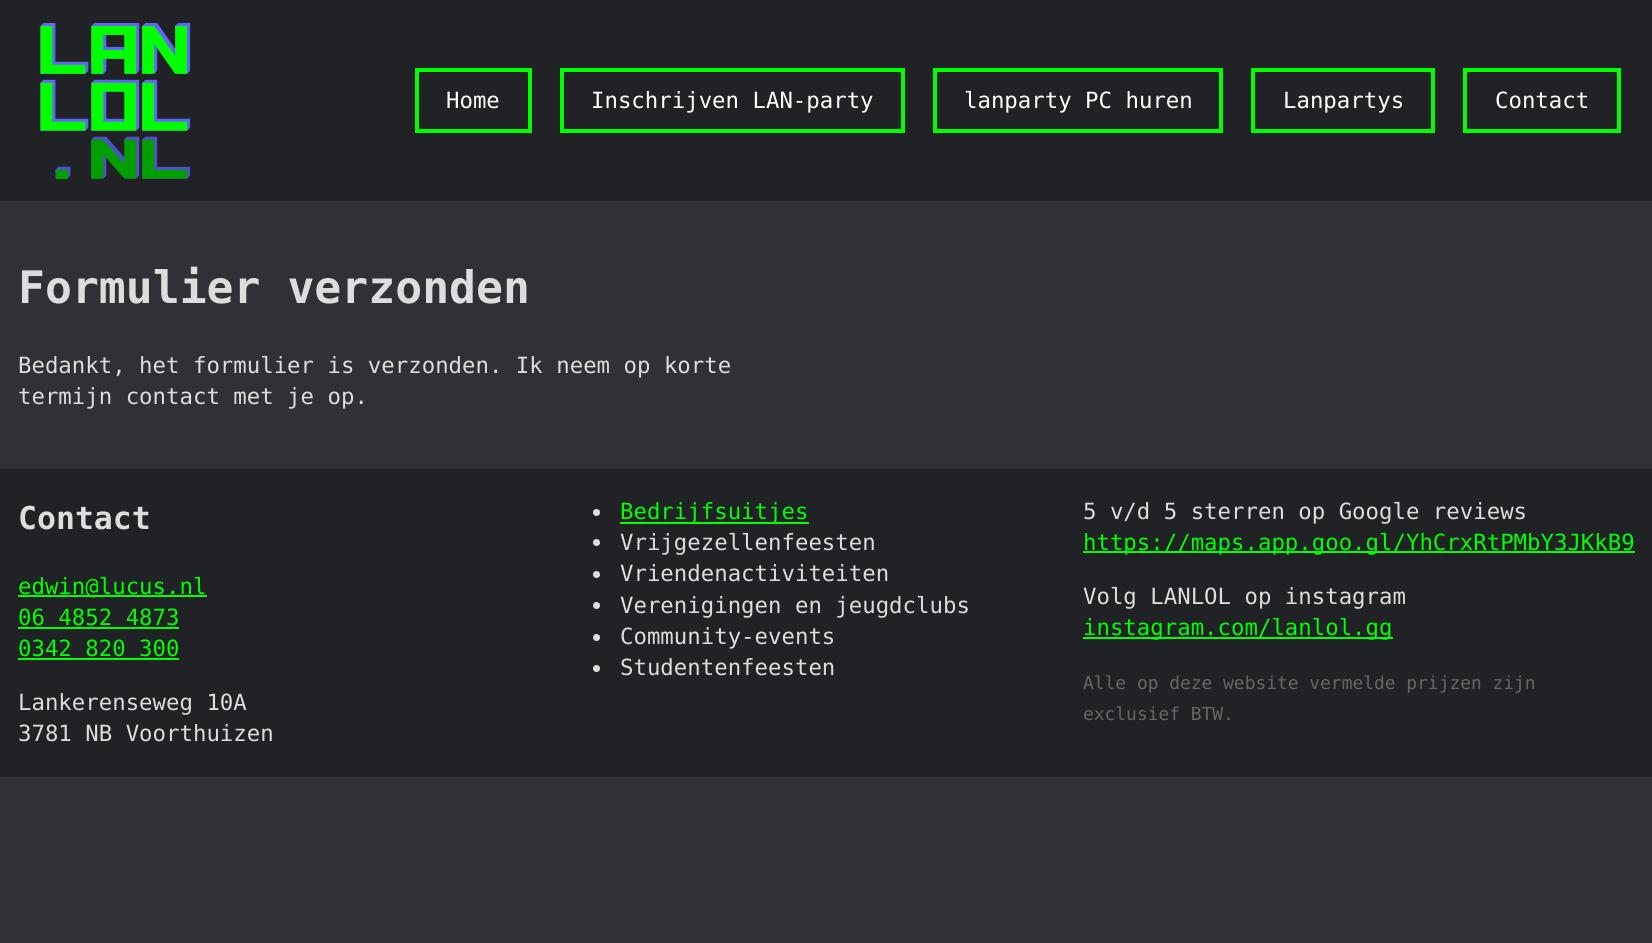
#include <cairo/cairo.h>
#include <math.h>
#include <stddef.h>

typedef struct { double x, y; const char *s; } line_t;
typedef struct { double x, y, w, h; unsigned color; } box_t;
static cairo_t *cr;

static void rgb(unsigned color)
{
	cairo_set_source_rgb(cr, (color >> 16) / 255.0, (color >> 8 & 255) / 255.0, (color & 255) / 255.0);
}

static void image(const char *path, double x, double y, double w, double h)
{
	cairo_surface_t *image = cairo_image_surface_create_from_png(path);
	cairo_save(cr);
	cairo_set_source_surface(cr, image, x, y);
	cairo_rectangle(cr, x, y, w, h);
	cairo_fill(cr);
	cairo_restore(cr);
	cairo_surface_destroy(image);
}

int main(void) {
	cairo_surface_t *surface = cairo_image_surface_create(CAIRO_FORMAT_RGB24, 1652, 943);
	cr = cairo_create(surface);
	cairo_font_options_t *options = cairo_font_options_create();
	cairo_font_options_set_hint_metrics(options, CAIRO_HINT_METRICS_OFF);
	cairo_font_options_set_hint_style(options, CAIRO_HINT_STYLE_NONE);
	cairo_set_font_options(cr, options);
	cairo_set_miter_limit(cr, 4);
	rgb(0x2f3136);
	cairo_paint(cr);
	rgb(0x202225);
	cairo_rectangle(cr, 0, 0, 1652, 201);
	cairo_fill(cr);
	image("img/1.png", 40, 23, 151, 156);
	cairo_rectangle(cr, 417, 70, 113, 61);
	rgb(0x00ff00);
	cairo_set_line_width(cr, 4);
	cairo_stroke(cr);
	cairo_rectangle(cr, 562, 70, 341, 61);
	cairo_stroke(cr);
	cairo_rectangle(cr, 935, 70, 286, 61);
	cairo_stroke(cr);
	cairo_rectangle(cr, 1253, 70, 180, 61);
	cairo_stroke(cr);
	cairo_rectangle(cr, 1465, 70, 154, 61);
	cairo_stroke(cr);
	{
		static const box_t items[] = {
			{0, 469, 1652, 308, 0x202225},
			{18, 595, 189, 2, 0x00ff00},
			{18, 627, 161, 2, 0x00ff00},
			{18, 658, 161, 2, 0x00ff00},
		};
		for (size_t i = 0; i < sizeof items / sizeof *items; i++) {
			rgb(items[i].color);
			cairo_rectangle(cr, items[i].x, items[i].y, items[i].w, items[i].h);
			cairo_fill(cr);
		}
	}
	rgb(0xdddddd);
	cairo_arc(cr, 596.5, 512.5, 3.5, 0, 2 * M_PI);
	cairo_fill(cr);
	rgb(0x00ff00);
	cairo_rectangle(cr, 620, 522, 189, 2);
	cairo_fill(cr);
	rgb(0xdddddd);
	cairo_arc(cr, 596.5, 542.5, 3.5, 0, 2 * M_PI);
	cairo_fill(cr);
	cairo_arc(cr, 596.5, 574.5, 3.5, 0, 2 * M_PI);
	cairo_fill(cr);
	cairo_arc(cr, 596.5, 605.5, 3.5, 0, 2 * M_PI);
	cairo_fill(cr);
	cairo_arc(cr, 596.5, 637.5, 3.5, 0, 2 * M_PI);
	cairo_fill(cr);
	cairo_arc(cr, 596.5, 668.5, 3.5, 0, 2 * M_PI);
	cairo_fill(cr);
	rgb(0x00ff00);
	cairo_rectangle(cr, 1083, 551, 552, 2);
	cairo_fill(cr);
	cairo_rectangle(cr, 1083, 637, 310, 2);
	cairo_fill(cr);
	cairo_select_font_face(cr, "DejaVu Sans Mono", CAIRO_FONT_SLANT_NORMAL, CAIRO_FONT_WEIGHT_NORMAL);
	cairo_set_font_size(cr, 22.35);
	rgb(0xffffff);
	{
		static const line_t items[] = {
			{446, 108, "Home"},
			{591, 108, "Inschrijven LAN-party"},
			{964, 108, "lanparty PC huren"},
			{1283, 108, "Lanpartys"},
			{1495, 108, "Contact"},
		};
		for (size_t i = 0; i < sizeof items / sizeof *items; i++) {
			cairo_move_to(cr, items[i].x, items[i].y);
			cairo_show_text(cr, items[i].s);
		}
	}
	cairo_select_font_face(cr, "DejaVu Sans Mono", CAIRO_FONT_SLANT_NORMAL, CAIRO_FONT_WEIGHT_BOLD);
	cairo_set_font_size(cr, 44.75);
	rgb(0xdddddd);
	cairo_move_to(cr, 18, 303);
	cairo_show_text(cr, "Formulier verzonden");
	cairo_select_font_face(cr, "DejaVu Sans Mono", CAIRO_FONT_SLANT_NORMAL, CAIRO_FONT_WEIGHT_NORMAL);
	cairo_set_font_size(cr, 22.35);
	cairo_move_to(cr, 18, 373);
	cairo_show_text(cr, "Bedankt, het formulier is verzonden. Ik neem op korte");
	cairo_move_to(cr, 18, 404);
	cairo_show_text(cr, "termijn contact met je op.");
	cairo_select_font_face(cr, "DejaVu Sans Mono", CAIRO_FONT_SLANT_NORMAL, CAIRO_FONT_WEIGHT_BOLD);
	cairo_set_font_size(cr, 31.5);
	cairo_move_to(cr, 18, 529);
	cairo_show_text(cr, "Contact");
	cairo_select_font_face(cr, "DejaVu Sans Mono", CAIRO_FONT_SLANT_NORMAL, CAIRO_FONT_WEIGHT_NORMAL);
	cairo_set_font_size(cr, 22.35);
	rgb(0x00ff00);
	{
		static const line_t items[] = {
			{18, 594, "edwin@lucus.nl"},
			{18, 625, "06 4852 4873"},
			{18, 656, "0342 820 300"},
		};
		for (size_t i = 0; i < sizeof items / sizeof *items; i++) {
			cairo_move_to(cr, items[i].x, items[i].y);
			cairo_show_text(cr, items[i].s);
		}
	}
	rgb(0xdddddd);
	cairo_move_to(cr, 18, 710);
	cairo_show_text(cr, "Lankerenseweg 10A");
	cairo_move_to(cr, 18, 741);
	cairo_show_text(cr, "3781 NB Voorthuizen");
	rgb(0x00ff00);
	cairo_move_to(cr, 620, 519);
	cairo_show_text(cr, "Bedrijfsuitjes");
	rgb(0xdddddd);
	{
		static const line_t items[] = {
			{620, 550, "Vrijgezellenfeesten"},
			{620, 581, "Vriendenactiviteiten"},
			{620, 613, "Verenigingen en jeugdclubs"},
			{620, 644, "Community-events"},
			{620, 675, "Studentenfeesten"},
			{1083, 519, "5 v/d 5 sterren op Google reviews"},
		};
		for (size_t i = 0; i < sizeof items / sizeof *items; i++) {
			cairo_move_to(cr, items[i].x, items[i].y);
			cairo_show_text(cr, items[i].s);
		}
	}
	rgb(0x00ff00);
	cairo_move_to(cr, 1083, 550);
	cairo_show_text(cr, "https://maps.app.goo.gl/YhCrxRtPMbY3JKkB9");
	rgb(0xdddddd);
	cairo_move_to(cr, 1083, 604);
	cairo_show_text(cr, "Volg LANLOL op instagram");
	rgb(0x00ff00);
	cairo_move_to(cr, 1083, 635);
	cairo_show_text(cr, "instagram.com/lanlol.gg");
	cairo_set_font_size(cr, 17.9);
	rgb(0x666666);
	cairo_move_to(cr, 1083, 689);
	cairo_show_text(cr, "Alle op deze website vermelde prijzen zijn");
	cairo_move_to(cr, 1083, 720);
	cairo_show_text(cr, "exclusief BTW.");
	cairo_surface_write_to_png(surface, "page.png");
	cairo_font_options_destroy(options);
	cairo_destroy(cr);
	cairo_surface_destroy(surface);
	return 0;
}
